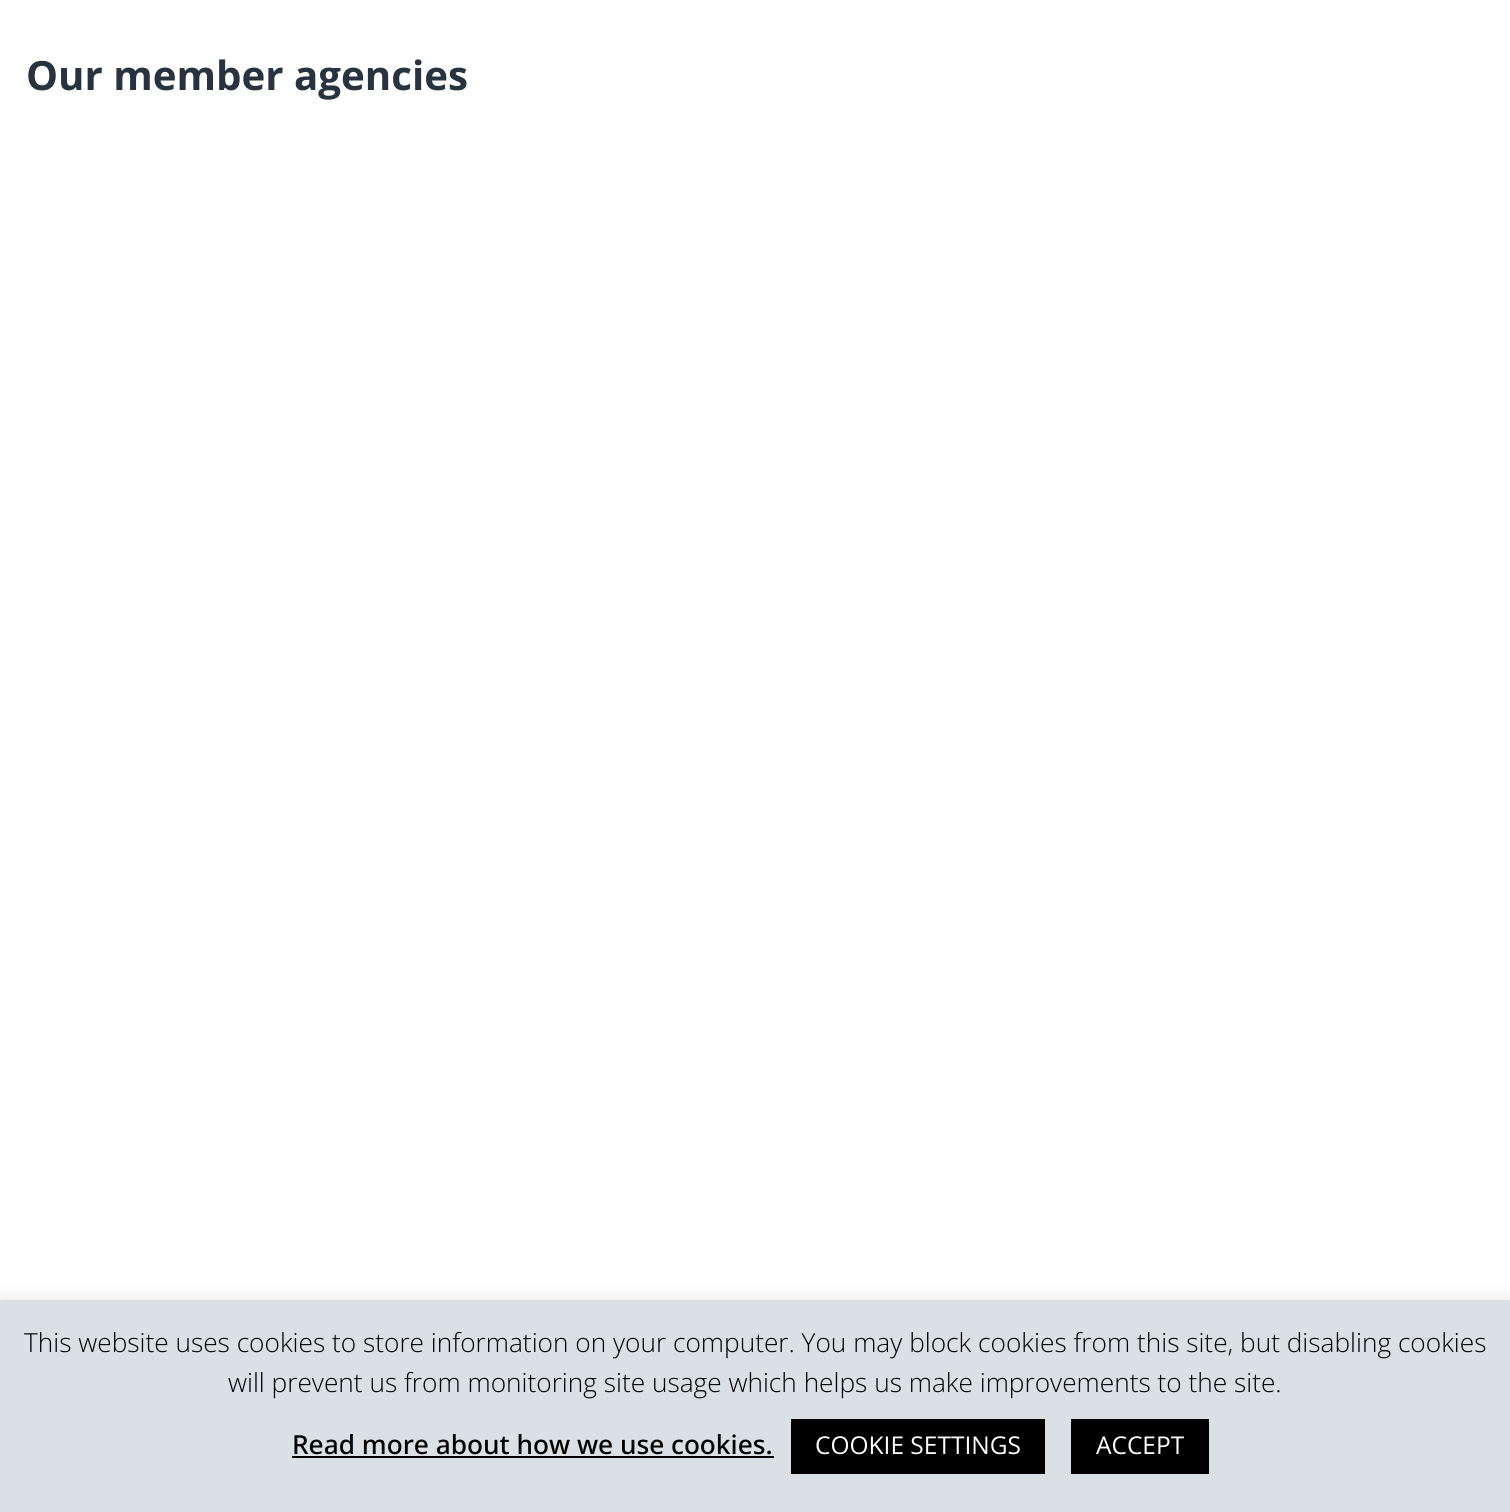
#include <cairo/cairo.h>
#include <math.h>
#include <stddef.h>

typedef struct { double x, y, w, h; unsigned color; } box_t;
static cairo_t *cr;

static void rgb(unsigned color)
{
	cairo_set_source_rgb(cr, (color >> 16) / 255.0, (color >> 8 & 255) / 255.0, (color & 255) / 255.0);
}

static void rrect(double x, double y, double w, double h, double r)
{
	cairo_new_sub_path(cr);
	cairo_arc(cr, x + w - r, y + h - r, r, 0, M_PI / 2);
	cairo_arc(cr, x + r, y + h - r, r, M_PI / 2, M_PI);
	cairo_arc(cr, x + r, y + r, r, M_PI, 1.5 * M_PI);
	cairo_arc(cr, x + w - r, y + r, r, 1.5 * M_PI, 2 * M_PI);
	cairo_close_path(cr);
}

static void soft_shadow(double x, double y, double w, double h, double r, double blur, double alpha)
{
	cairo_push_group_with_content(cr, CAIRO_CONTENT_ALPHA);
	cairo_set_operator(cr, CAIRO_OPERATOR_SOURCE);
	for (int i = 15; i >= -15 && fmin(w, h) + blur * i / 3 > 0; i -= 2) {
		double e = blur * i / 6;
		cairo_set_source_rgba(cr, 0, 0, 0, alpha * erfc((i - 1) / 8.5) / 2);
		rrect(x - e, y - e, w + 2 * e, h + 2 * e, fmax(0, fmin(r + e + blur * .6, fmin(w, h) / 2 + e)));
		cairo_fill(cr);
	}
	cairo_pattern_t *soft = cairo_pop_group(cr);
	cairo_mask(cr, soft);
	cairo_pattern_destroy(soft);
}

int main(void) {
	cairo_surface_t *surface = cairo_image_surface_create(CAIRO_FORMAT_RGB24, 1510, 1512);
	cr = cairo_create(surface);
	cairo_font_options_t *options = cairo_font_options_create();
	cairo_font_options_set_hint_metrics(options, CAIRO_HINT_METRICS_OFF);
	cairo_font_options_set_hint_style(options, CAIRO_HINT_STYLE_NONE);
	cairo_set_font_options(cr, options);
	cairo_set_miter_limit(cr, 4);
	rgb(0xffffff);
	cairo_paint(cr);
	rgb(0xacabab);
	soft_shadow(0, 1299, 1510, 211, 0, 9, 0.3);
	{
		static const box_t items[] = {
			{0, 1300, 1510, 212, 0xdbe0e5},
			{292, 1456, 482, 2, 0x000000},
			{791, 1419, 254, 55, 0x000000},
			{1071, 1419, 138, 55, 0x000000},
		};
		for (size_t i = 0; i < sizeof items / sizeof *items; i++) {
			rgb(items[i].color);
			cairo_rectangle(cr, items[i].x, items[i].y, items[i].w, items[i].h);
			cairo_fill(cr);
		}
	}
	cairo_select_font_face(cr, "Open Sans", CAIRO_FONT_SLANT_NORMAL, CAIRO_FONT_WEIGHT_BOLD);
	cairo_set_font_size(cr, 40.25);
	rgb(0x27343f);
	cairo_move_to(cr, 26, 90);
	cairo_show_text(cr, "Our member agencies");
	cairo_select_font_face(cr, "Open Sans Light", CAIRO_FONT_SLANT_NORMAL, CAIRO_FONT_WEIGHT_NORMAL);
	cairo_set_font_size(cr, 26.25);
	rgb(0x000000);
	cairo_move_to(cr, 24, 1352);
	cairo_show_text(cr, "This website uses cookies to store information on your computer. You may block cookies from this site, but disabling cookies");
	cairo_move_to(cr, 228, 1392);
	cairo_show_text(cr, "will prevent us from monitoring site usage which helps us make improvements to the site.");
	cairo_select_font_face(cr, "Open Sans Medium", CAIRO_FONT_SLANT_NORMAL, CAIRO_FONT_WEIGHT_NORMAL);
	cairo_move_to(cr, 292, 1454);
	cairo_show_text(cr, "Read more about how we use cookies.");
	cairo_select_font_face(cr, "Open Sans", CAIRO_FONT_SLANT_NORMAL, CAIRO_FONT_WEIGHT_NORMAL);
	cairo_set_font_size(cr, 24.5);
	rgb(0xffffff);
	cairo_move_to(cr, 815, 1454);
	cairo_show_text(cr, "COOKIE SETTINGS");
	cairo_move_to(cr, 1096, 1454);
	cairo_show_text(cr, "ACCEPT");
	cairo_surface_write_to_png(surface, "page.png");
	cairo_font_options_destroy(options);
	cairo_destroy(cr);
	cairo_surface_destroy(surface);
	return 0;
}
